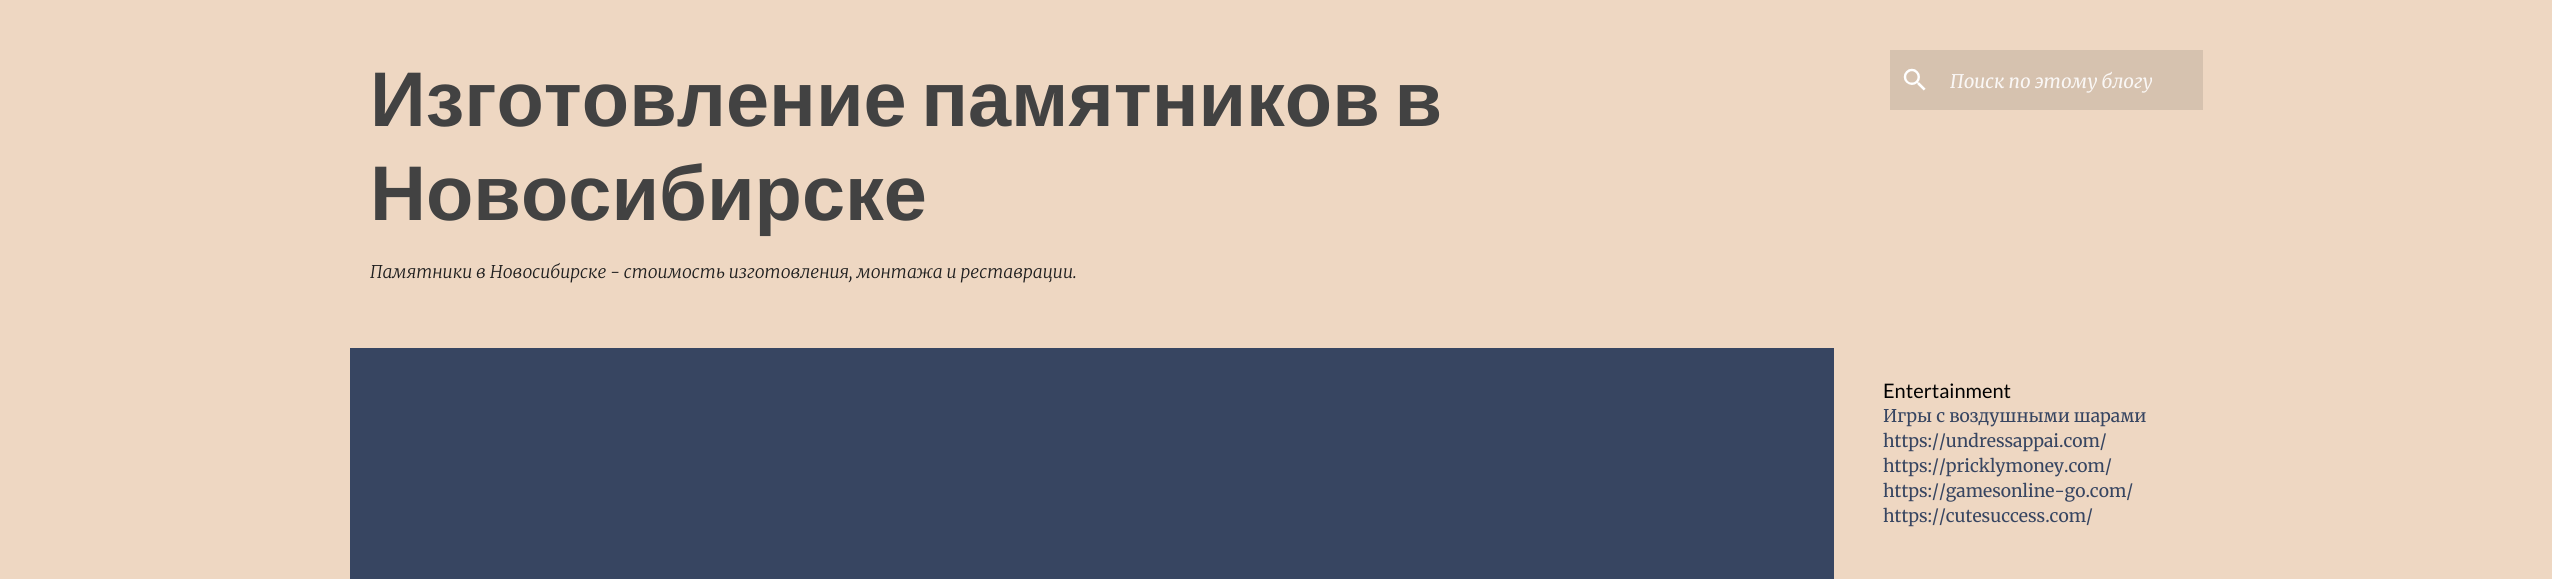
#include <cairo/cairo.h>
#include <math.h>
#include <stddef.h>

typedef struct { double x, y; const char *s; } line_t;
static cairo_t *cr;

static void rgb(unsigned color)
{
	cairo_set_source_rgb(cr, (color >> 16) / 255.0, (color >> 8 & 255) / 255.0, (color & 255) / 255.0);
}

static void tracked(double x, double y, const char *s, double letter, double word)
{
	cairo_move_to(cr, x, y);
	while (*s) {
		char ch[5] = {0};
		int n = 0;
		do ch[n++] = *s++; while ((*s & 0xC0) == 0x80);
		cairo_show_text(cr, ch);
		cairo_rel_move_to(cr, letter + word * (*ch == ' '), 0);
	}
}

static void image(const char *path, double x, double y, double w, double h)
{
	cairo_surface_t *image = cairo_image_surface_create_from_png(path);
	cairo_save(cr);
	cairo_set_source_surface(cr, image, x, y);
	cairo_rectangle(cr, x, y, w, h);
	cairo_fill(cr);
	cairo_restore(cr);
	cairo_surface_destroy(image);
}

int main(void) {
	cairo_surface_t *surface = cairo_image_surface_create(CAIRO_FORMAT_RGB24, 2552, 579);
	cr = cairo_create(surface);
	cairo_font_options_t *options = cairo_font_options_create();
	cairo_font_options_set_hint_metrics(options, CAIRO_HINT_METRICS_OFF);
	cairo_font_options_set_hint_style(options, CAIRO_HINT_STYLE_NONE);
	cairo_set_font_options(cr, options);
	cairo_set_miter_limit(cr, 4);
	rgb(0xeed7c2);
	cairo_paint(cr);
	rgb(0xd6c2af);
	cairo_rectangle(cr, 1890, 50, 313, 60);
	cairo_fill(cr);
	image("img/1.png", 1903, 68, 23, 23);
	rgb(0x374561);
	cairo_rectangle(cr, 350, 348, 1484, 231);
	cairo_fill(cr);
	cairo_select_font_face(cr, "Liberation Sans", CAIRO_FONT_SLANT_NORMAL, CAIRO_FONT_WEIGHT_BOLD);
	cairo_set_font_size(cr, 77.5);
	rgb(0x424242);
	tracked(370, 126, "Изготовление памятников в", 0, -7);
	cairo_move_to(cr, 370, 220);
	cairo_show_text(cr, "Новосибирске");
	cairo_select_font_face(cr, "Merriweather Light", CAIRO_FONT_SLANT_ITALIC, CAIRO_FONT_WEIGHT_NORMAL);
	cairo_set_font_size(cr, 17.5);
	rgb(0x1f1f1f);
	cairo_move_to(cr, 370, 278);
	cairo_show_text(cr, "Памятники в Новосибирске - стоимость изготовления, монтажа и реставрации.");
	cairo_select_font_face(cr, "Merriweather", CAIRO_FONT_SLANT_ITALIC, CAIRO_FONT_WEIGHT_NORMAL);
	cairo_set_font_size(cr, 18.75);
	rgb(0xfaf7f5);
	cairo_move_to(cr, 1950, 88);
	cairo_show_text(cr, "Поиск по этому блогу");
	cairo_select_font_face(cr, "Lato", CAIRO_FONT_SLANT_NORMAL, CAIRO_FONT_WEIGHT_NORMAL);
	cairo_set_font_size(cr, 20);
	rgb(0x000000);
	cairo_move_to(cr, 1883, 398);
	cairo_show_text(cr, "Entertainment");
	cairo_select_font_face(cr, "Merriweather Light", CAIRO_FONT_SLANT_NORMAL, CAIRO_FONT_WEIGHT_NORMAL);
	cairo_set_font_size(cr, 17.5);
	rgb(0x374561);
	{
		static const line_t items[] = {
			{1883, 422, "Игры с воздушными шарами"},
			{1883, 447, "https://undressappai.com/"},
			{1883, 472, "https://pricklymoney.com/"},
			{1883, 497, "https://gamesonline-go.com/"},
			{1883, 522, "https://cutesuccess.com/"},
		};
		for (size_t i = 0; i < sizeof items / sizeof *items; i++) {
			cairo_move_to(cr, items[i].x, items[i].y);
			cairo_show_text(cr, items[i].s);
		}
	}
	cairo_surface_write_to_png(surface, "page.png");
	cairo_font_options_destroy(options);
	cairo_destroy(cr);
	cairo_surface_destroy(surface);
	return 0;
}
